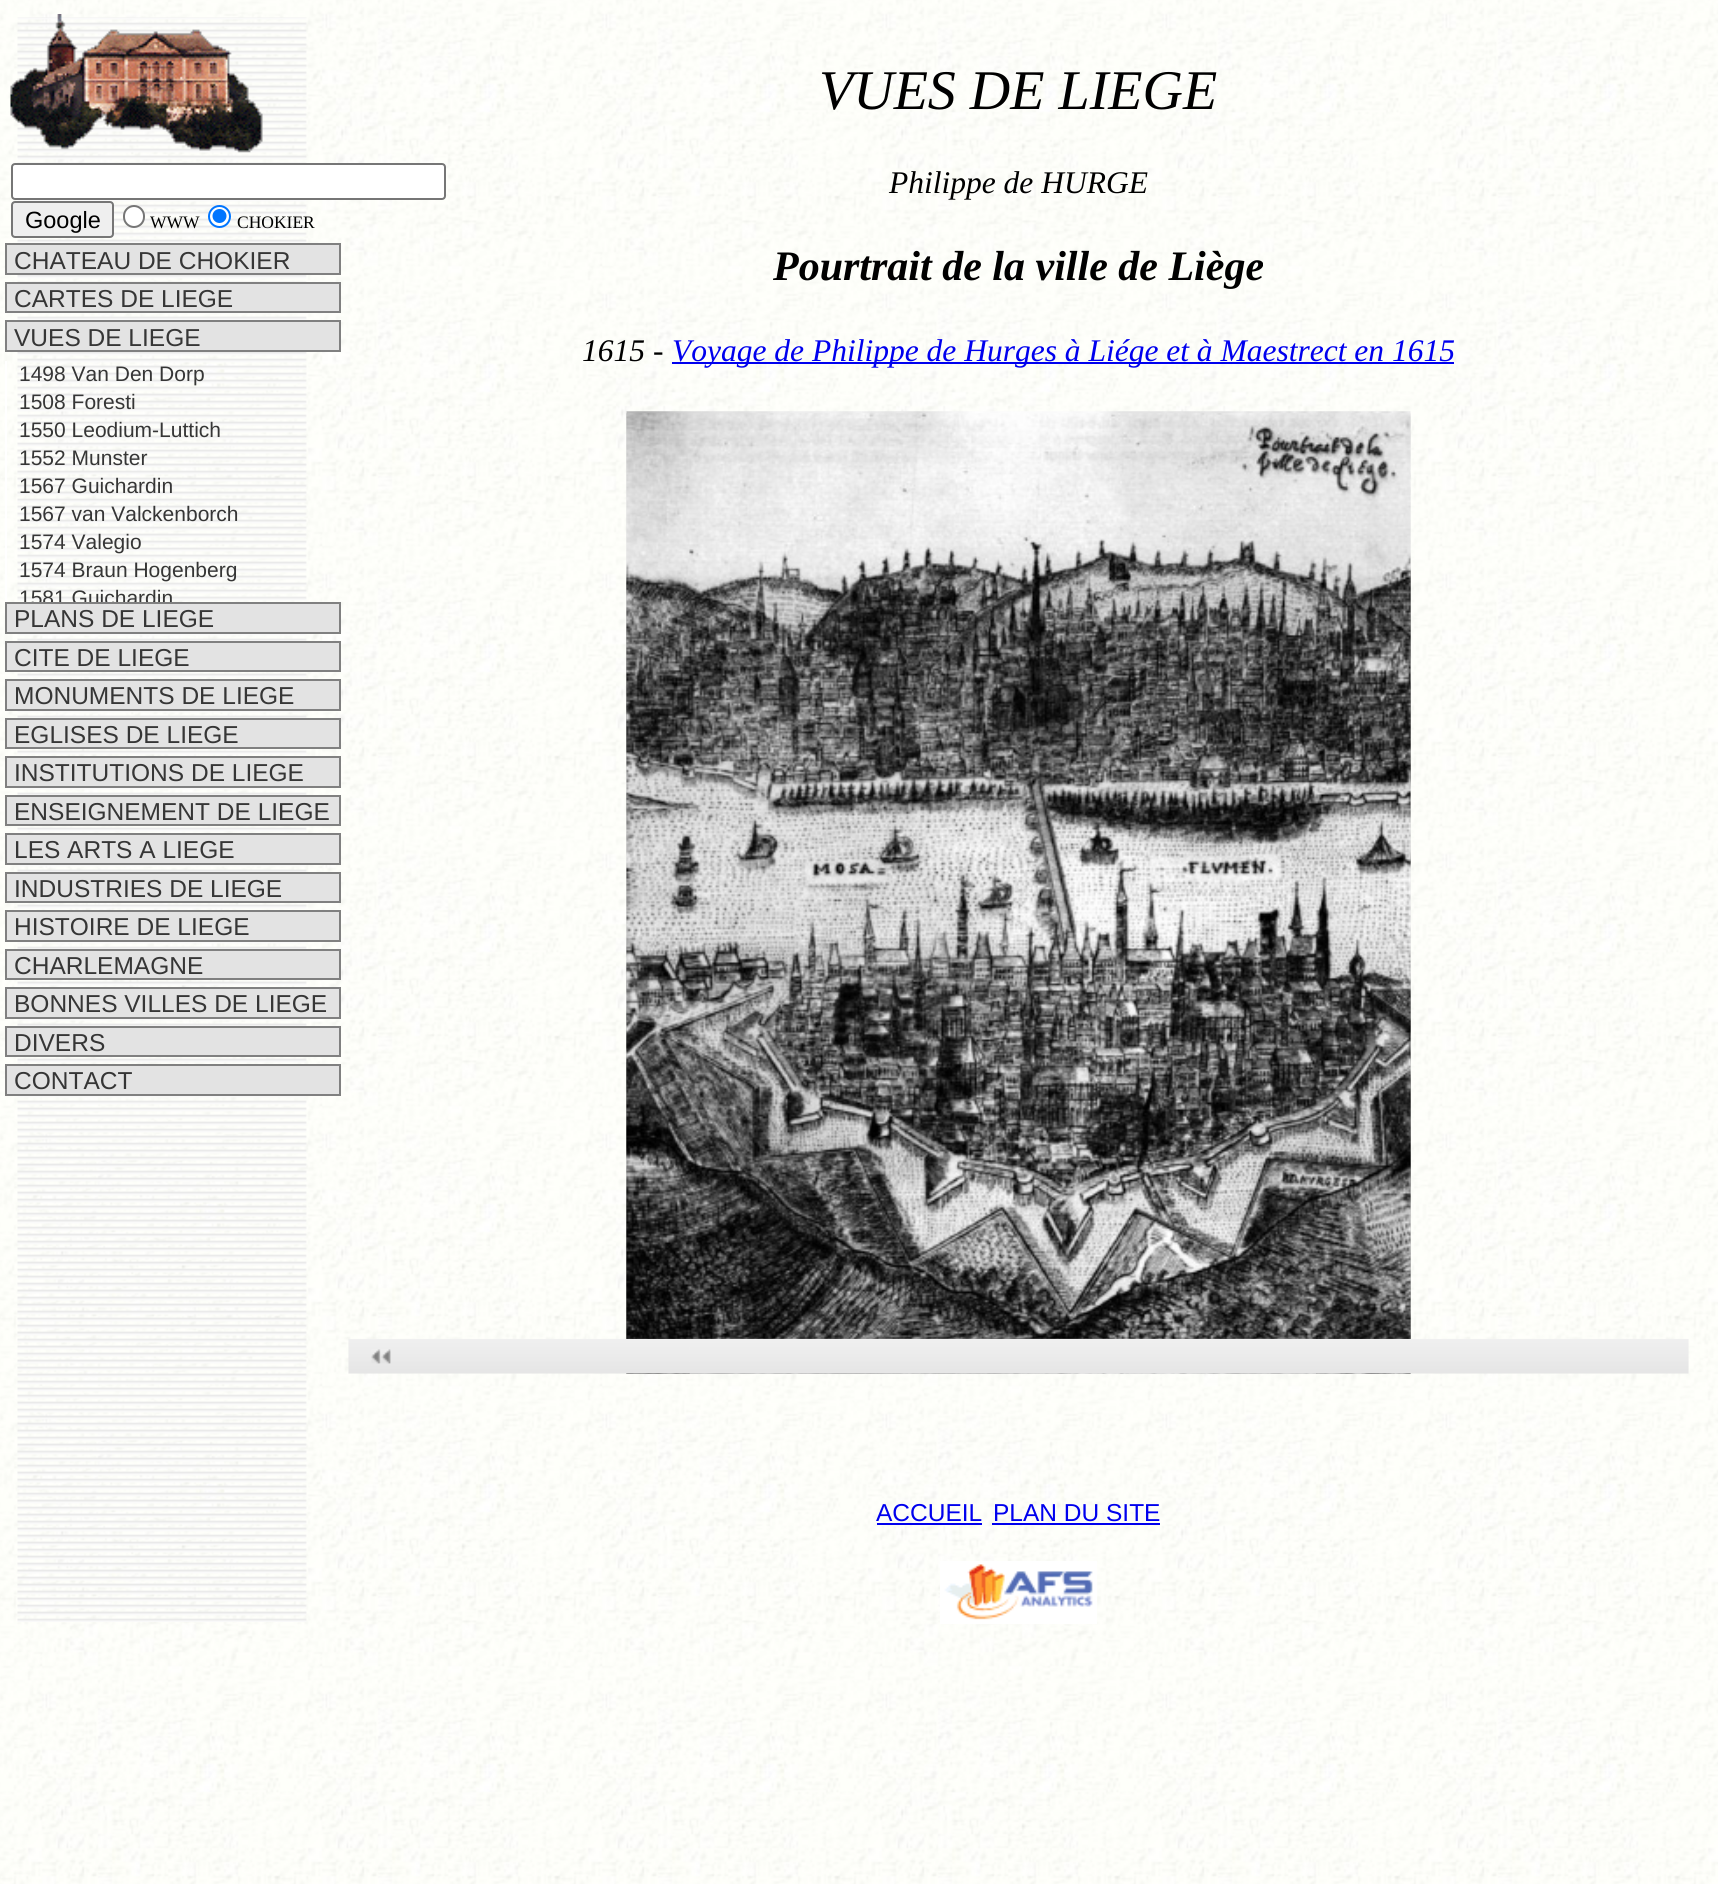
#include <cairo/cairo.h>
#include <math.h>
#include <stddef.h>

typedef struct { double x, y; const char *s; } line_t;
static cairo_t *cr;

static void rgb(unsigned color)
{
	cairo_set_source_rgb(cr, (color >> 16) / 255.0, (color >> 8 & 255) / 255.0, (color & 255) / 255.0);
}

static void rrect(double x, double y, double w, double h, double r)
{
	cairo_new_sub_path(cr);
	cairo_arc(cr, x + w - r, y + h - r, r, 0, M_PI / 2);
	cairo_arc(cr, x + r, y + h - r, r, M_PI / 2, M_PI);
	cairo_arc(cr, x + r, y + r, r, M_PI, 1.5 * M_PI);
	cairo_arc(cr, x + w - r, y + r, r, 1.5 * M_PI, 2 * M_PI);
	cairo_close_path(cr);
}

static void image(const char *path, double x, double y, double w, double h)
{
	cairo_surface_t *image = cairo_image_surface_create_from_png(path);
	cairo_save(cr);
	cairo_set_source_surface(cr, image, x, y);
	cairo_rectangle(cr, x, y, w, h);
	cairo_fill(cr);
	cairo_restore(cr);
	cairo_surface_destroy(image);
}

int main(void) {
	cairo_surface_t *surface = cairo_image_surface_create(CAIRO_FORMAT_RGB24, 1718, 1884);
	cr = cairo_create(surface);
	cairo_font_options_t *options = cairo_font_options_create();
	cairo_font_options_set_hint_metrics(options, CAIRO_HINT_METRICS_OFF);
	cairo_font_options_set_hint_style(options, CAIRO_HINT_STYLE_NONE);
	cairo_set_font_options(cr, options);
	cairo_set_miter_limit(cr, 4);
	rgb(0xffffff);
	cairo_paint(cr);
	image("img/1.png", 0, 0, 1718, 1884);
	image("img/3.png", 17, 17, 290, 1605);
	image("img/2.png", 10, 14, 253, 139);
	rgb(0xffffff);
	rrect(12, 164, 433, 35, 3);
	cairo_fill_preserve(cr);
	rgb(0x767676);
	cairo_stroke(cr);
	rgb(0xefefef);
	rrect(12, 202, 101, 35, 3);
	cairo_fill_preserve(cr);
	rgb(0x767676);
	cairo_stroke(cr);
	rgb(0xffffff);
	rrect(124, 206, 20, 21, 10);
	cairo_fill_preserve(cr);
	rgb(0x767676);
	cairo_stroke(cr);
	rgb(0xffffff);
	cairo_arc(cr, 219.5, 216.5, 10.5, 0, 2 * M_PI);
	cairo_fill_preserve(cr);
	rgb(0x0075ff);
	cairo_stroke(cr);
	cairo_arc(cr, 219.5, 216, 7, 0, 2 * M_PI);
	cairo_fill(cr);
	rgb(0xe3e3e3);
	cairo_rectangle(cr, 6, 244, 334, 30);
	cairo_fill_preserve(cr);
	rgb(0x808080);
	cairo_stroke(cr);
	rgb(0xe3e3e3);
	cairo_rectangle(cr, 6, 283, 334, 29);
	cairo_fill_preserve(cr);
	rgb(0x808080);
	cairo_stroke(cr);
	rgb(0xe3e3e3);
	cairo_rectangle(cr, 6, 321, 334, 30);
	cairo_fill_preserve(cr);
	rgb(0x808080);
	cairo_stroke(cr);
	rgb(0xffffff);
	cairo_rectangle(cr, 5, 361, 2, 243);
	cairo_fill(cr);
	rgb(0xe3e3e3);
	cairo_rectangle(cr, 6, 642, 334, 29);
	cairo_fill_preserve(cr);
	rgb(0x808080);
	cairo_stroke(cr);
	rgb(0xe3e3e3);
	cairo_rectangle(cr, 6, 680, 334, 30);
	cairo_fill_preserve(cr);
	rgb(0x808080);
	cairo_stroke(cr);
	rgb(0xe3e3e3);
	cairo_rectangle(cr, 6, 719, 334, 29);
	cairo_fill_preserve(cr);
	rgb(0x808080);
	cairo_stroke(cr);
	rgb(0xe3e3e3);
	cairo_rectangle(cr, 6, 757, 334, 30);
	cairo_fill_preserve(cr);
	rgb(0x808080);
	cairo_stroke(cr);
	rgb(0xe3e3e3);
	cairo_rectangle(cr, 6, 796, 334, 29);
	cairo_fill_preserve(cr);
	rgb(0x808080);
	cairo_stroke(cr);
	rgb(0xe3e3e3);
	cairo_rectangle(cr, 6, 834, 334, 30);
	cairo_fill_preserve(cr);
	rgb(0x808080);
	cairo_stroke(cr);
	rgb(0xe3e3e3);
	cairo_rectangle(cr, 6, 873, 334, 29);
	cairo_fill_preserve(cr);
	rgb(0x808080);
	cairo_stroke(cr);
	rgb(0xe3e3e3);
	cairo_rectangle(cr, 6, 911, 334, 30);
	cairo_fill_preserve(cr);
	rgb(0x808080);
	cairo_stroke(cr);
	rgb(0xe3e3e3);
	cairo_rectangle(cr, 6, 950, 334, 29);
	cairo_fill_preserve(cr);
	rgb(0x808080);
	cairo_stroke(cr);
	rgb(0xe3e3e3);
	cairo_rectangle(cr, 6, 988, 334, 30);
	cairo_fill_preserve(cr);
	rgb(0x808080);
	cairo_stroke(cr);
	rgb(0xe3e3e3);
	cairo_rectangle(cr, 6, 1027, 334, 29);
	cairo_fill_preserve(cr);
	rgb(0x808080);
	cairo_stroke(cr);
	rgb(0xe3e3e3);
	cairo_rectangle(cr, 6, 1065, 334, 30);
	cairo_fill_preserve(cr);
	rgb(0x808080);
	cairo_stroke(cr);
	rgb(0x0000ee);
	cairo_rectangle(cr, 672, 362, 782, 2);
	cairo_fill(cr);
	image("img/4.png", 626, 411, 785, 963);
	image("img/5.png", 626, 413, 785, 961);
	image("img/6.png", 348, 1338, 1341, 36);
	image("img/7.png", 371, 1349, 20, 15);
	image("img/8.png", 689, 1338, 627, 36);
	cairo_rectangle(cr, 877, 1523, 105, 2);
	cairo_fill(cr);
	cairo_rectangle(cr, 992, 1523, 168, 2);
	cairo_fill(cr);
	image("img/9.png", 940, 1561, 157, 63);
	cairo_select_font_face(cr, "Liberation Sans", CAIRO_FONT_SLANT_NORMAL, CAIRO_FONT_WEIGHT_NORMAL);
	cairo_set_font_size(cr, 23.5);
	rgb(0x000000);
	cairo_move_to(cr, 25, 228);
	cairo_show_text(cr, "Google");
	cairo_select_font_face(cr, "Liberation Serif", CAIRO_FONT_SLANT_NORMAL, CAIRO_FONT_WEIGHT_NORMAL);
	cairo_set_font_size(cr, 17.5);
	cairo_move_to(cr, 150, 228);
	cairo_show_text(cr, "WWW");
	cairo_move_to(cr, 237, 228);
	cairo_show_text(cr, "CHOKIER");
	cairo_select_font_face(cr, "Liberation Sans", CAIRO_FONT_SLANT_NORMAL, CAIRO_FONT_WEIGHT_NORMAL);
	cairo_set_font_size(cr, 24.5);
	rgb(0x363636);
	{
		static const line_t items[] = {
			{14, 269, "CHATEAU DE CHOKIER"},
			{14, 307, "CARTES DE LIEGE"},
			{14, 346, "VUES DE LIEGE"},
		};
		for (size_t i = 0; i < sizeof items / sizeof *items; i++) {
			cairo_move_to(cr, items[i].x, items[i].y);
			cairo_show_text(cr, items[i].s);
		}
	}
	cairo_set_font_size(cr, 21);
	{
		static const line_t items[] = {
			{19, 381, "1498 Van Den Dorp"},
			{19, 409, "1508 Foresti"},
			{19, 437, "1550 Leodium-Luttich"},
			{19, 465, "1552 Munster"},
			{19, 493, "1567 Guichardin"},
			{19, 521, "1567 van Valckenborch"},
			{19, 549, "1574 Valegio"},
			{19, 577, "1574 Braun Hogenberg"},
			{19, 605, "1581 Guichardin"},
		};
		for (size_t i = 0; i < sizeof items / sizeof *items; i++) {
			cairo_move_to(cr, items[i].x, items[i].y);
			cairo_show_text(cr, items[i].s);
		}
	}
	rgb(0xe3e3e3);
	cairo_rectangle(cr, 6, 603, 334, 30);
	cairo_fill_preserve(cr);
	rgb(0x808080);
	cairo_stroke(cr);
	cairo_set_font_size(cr, 24.5);
	rgb(0x363636);
	{
		static const line_t items[] = {
			{14, 627, "PLANS DE LIEGE"},
			{14, 666, "CITE DE LIEGE"},
			{14, 704, "MONUMENTS DE LIEGE"},
			{14, 743, "EGLISES DE LIEGE"},
			{14, 781, "INSTITUTIONS DE LIEGE"},
			{14, 820, "ENSEIGNEMENT DE LIEGE"},
			{14, 858, "LES ARTS A LIEGE"},
			{14, 897, "INDUSTRIES DE LIEGE"},
			{14, 935, "HISTOIRE DE LIEGE"},
			{14, 974, "CHARLEMAGNE"},
			{14, 1012, "BONNES VILLES DE LIEGE"},
			{14, 1051, "DIVERS"},
			{14, 1089, "CONTACT"},
		};
		for (size_t i = 0; i < sizeof items / sizeof *items; i++) {
			cairo_move_to(cr, items[i].x, items[i].y);
			cairo_show_text(cr, items[i].s);
		}
	}
	cairo_select_font_face(cr, "Liberation Serif", CAIRO_FONT_SLANT_ITALIC, CAIRO_FONT_WEIGHT_NORMAL);
	cairo_set_font_size(cr, 56);
	rgb(0x000000);
	cairo_move_to(cr, 819, 109);
	cairo_show_text(cr, "VUES DE LIEGE");
	cairo_set_font_size(cr, 31.5);
	cairo_move_to(cr, 889, 193);
	cairo_show_text(cr, "Philippe de HURGE");
	cairo_select_font_face(cr, "Liberation Serif", CAIRO_FONT_SLANT_ITALIC, CAIRO_FONT_WEIGHT_BOLD);
	cairo_set_font_size(cr, 42);
	cairo_move_to(cr, 773, 280);
	cairo_show_text(cr, "Pourtrait de la ville de Liège");
	cairo_select_font_face(cr, "Liberation Serif", CAIRO_FONT_SLANT_ITALIC, CAIRO_FONT_WEIGHT_NORMAL);
	cairo_set_font_size(cr, 31.5);
	cairo_move_to(cr, 582, 361);
	cairo_show_text(cr, "1615 -");
	rgb(0x0000ee);
	cairo_move_to(cr, 672, 361);
	cairo_show_text(cr, "Voyage de Philippe de Hurges à Liége et à Maestrect en 1615");
	cairo_select_font_face(cr, "Liberation Sans", CAIRO_FONT_SLANT_NORMAL, CAIRO_FONT_WEIGHT_NORMAL);
	cairo_set_font_size(cr, 24.5);
	cairo_move_to(cr, 876, 1521);
	cairo_show_text(cr, "ACCUEIL");
	cairo_move_to(cr, 993, 1521);
	cairo_show_text(cr, "PLAN DU SITE");
	cairo_surface_write_to_png(surface, "page.png");
	cairo_font_options_destroy(options);
	cairo_destroy(cr);
	cairo_surface_destroy(surface);
	return 0;
}
